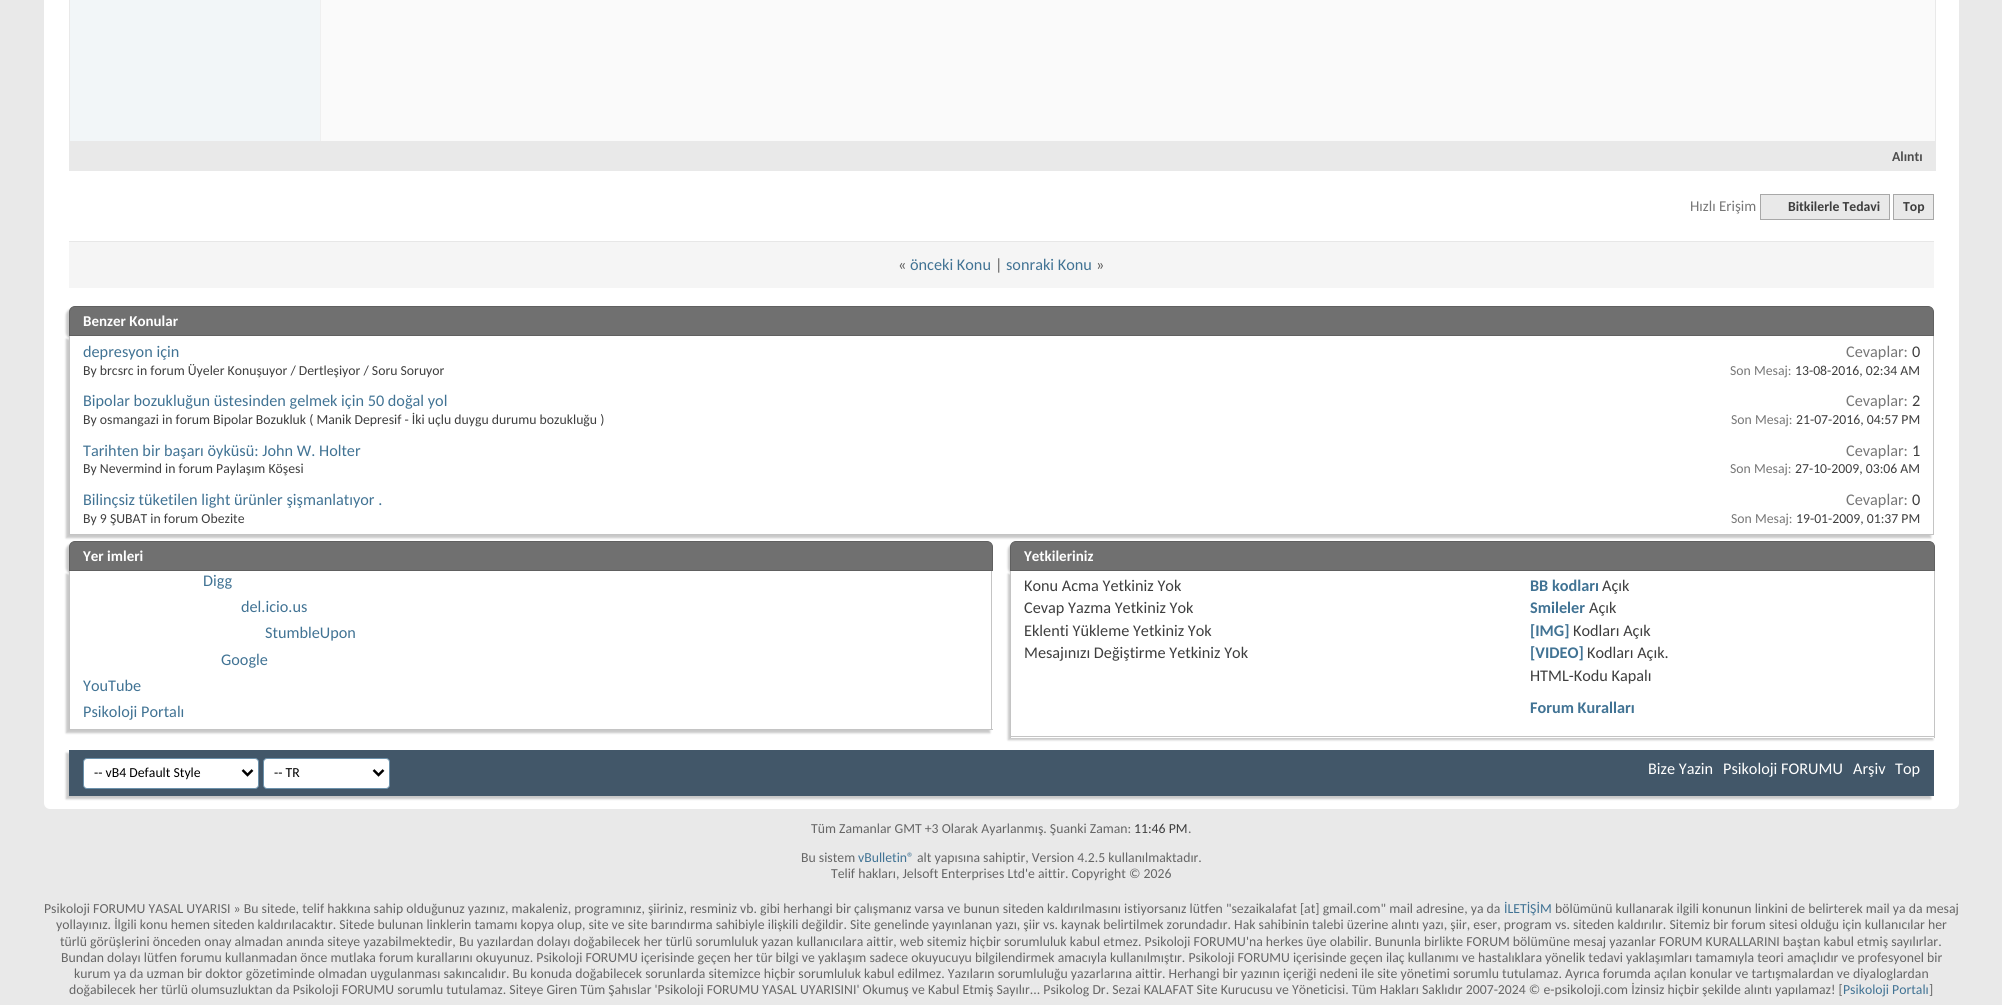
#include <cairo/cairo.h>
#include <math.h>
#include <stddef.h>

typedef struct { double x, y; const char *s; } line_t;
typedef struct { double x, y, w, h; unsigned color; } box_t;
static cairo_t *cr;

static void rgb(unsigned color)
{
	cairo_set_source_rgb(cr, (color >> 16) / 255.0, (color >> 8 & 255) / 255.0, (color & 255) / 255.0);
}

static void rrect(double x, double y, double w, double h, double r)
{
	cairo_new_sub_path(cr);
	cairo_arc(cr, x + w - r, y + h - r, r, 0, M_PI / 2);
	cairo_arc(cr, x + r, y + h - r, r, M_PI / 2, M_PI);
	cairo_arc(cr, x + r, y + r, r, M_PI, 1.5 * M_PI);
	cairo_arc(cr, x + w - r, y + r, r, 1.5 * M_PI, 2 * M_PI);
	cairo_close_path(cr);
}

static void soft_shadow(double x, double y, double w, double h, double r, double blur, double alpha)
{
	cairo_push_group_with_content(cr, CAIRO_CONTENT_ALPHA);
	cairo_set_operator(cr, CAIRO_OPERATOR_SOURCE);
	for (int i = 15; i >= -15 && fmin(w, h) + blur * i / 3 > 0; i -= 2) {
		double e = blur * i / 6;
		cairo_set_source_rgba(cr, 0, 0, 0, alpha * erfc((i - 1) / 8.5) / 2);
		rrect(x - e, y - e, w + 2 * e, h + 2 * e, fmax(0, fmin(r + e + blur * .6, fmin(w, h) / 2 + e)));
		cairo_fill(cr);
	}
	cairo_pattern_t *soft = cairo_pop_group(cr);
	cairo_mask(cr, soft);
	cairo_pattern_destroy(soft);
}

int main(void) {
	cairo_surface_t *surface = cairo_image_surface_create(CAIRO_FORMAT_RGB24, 2002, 1005);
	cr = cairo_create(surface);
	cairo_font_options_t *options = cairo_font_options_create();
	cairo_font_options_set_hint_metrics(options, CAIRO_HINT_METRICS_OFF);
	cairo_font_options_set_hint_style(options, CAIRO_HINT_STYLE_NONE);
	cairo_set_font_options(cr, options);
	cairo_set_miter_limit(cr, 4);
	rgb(0xe9e9e9);
	cairo_paint(cr);
	rgb(0xffffff);
	rrect(44, -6, 1915, 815, 6);
	cairo_fill(cr);
	cairo_rectangle(cr, 69.5, -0.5, 1866, 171);
	rgb(0xe9e9e9);
	cairo_set_line_width(cr, 1);
	cairo_stroke(cr);
	{
		static const box_t items[] = {
			{70, 0, 250, 141, 0xf2f6f8},
			{321, 0, 1614, 141, 0xfafafa},
			{320, 0, 1, 141, 0xefefef},
			{70, 141, 1865, 29, 0xe9e9e9},
		};
		for (size_t i = 0; i < sizeof items / sizeof *items; i++) {
			rgb(items[i].color);
			cairo_rectangle(cr, items[i].x, items[i].y, items[i].w, items[i].h);
			cairo_fill(cr);
		}
	}
	cairo_rectangle(cr, 1760.5, 194.5, 129, 25);
	cairo_fill_preserve(cr);
	rgb(0xa8a8a8);
	cairo_stroke(cr);
	rgb(0xe9e9e9);
	cairo_rectangle(cr, 1893.5, 194.5, 40, 25);
	cairo_fill_preserve(cr);
	rgb(0xa8a8a8);
	cairo_stroke(cr);
	rgb(0xf5f5f5);
	cairo_rectangle(cr, 69, 242, 1865, 46);
	cairo_fill(cr);
	rgb(0xe7e7e7);
	cairo_rectangle(cr, 69, 241, 1865, 1);
	cairo_fill(cr);
	rgb(0xc8c8c8);
	soft_shadow(66, 309, 1865, 30, 6, 1, 1);
	rgb(0x707070);
	cairo_new_path(cr);
	cairo_move_to(cr, 75, 306.5);
	cairo_line_to(cr, 1928, 306.5);
	cairo_curve_to(cr, 1931, 306.5, 1933.5, 309, 1933.5, 312);
	cairo_line_to(cr, 1933.5, 335.5);
	cairo_line_to(cr, 69.5, 335.5);
	cairo_line_to(cr, 69.5, 312);
	cairo_curve_to(cr, 69.5, 309, 72, 306.5, 75, 306.5);
	cairo_close_path(cr);
	cairo_fill_preserve(cr);
	rgb(0x606060);
	cairo_stroke(cr);
	rgb(0xc8c8c8);
	soft_shadow(66, 339, 1865, 199, 0, 1, 1);
	{
		static const box_t items[] = {
			{70, 336, 1863, 198, 0xffffff},
			{1933, 336, 1, 199, 0xc4c4c4},
			{69, 534, 1865, 1, 0xc4c4c4},
			{69, 336, 1, 199, 0xc4c4c4},
		};
		for (size_t i = 0; i < sizeof items / sizeof *items; i++) {
			rgb(items[i].color);
			cairo_rectangle(cr, items[i].x, items[i].y, items[i].w, items[i].h);
			cairo_fill(cr);
		}
	}
	rgb(0xc8c8c8);
	soft_shadow(66, 544, 924, 30, 6, 1, 1);
	rgb(0x707070);
	cairo_new_path(cr);
	cairo_move_to(cr, 75, 541.5);
	cairo_line_to(cr, 987, 541.5);
	cairo_curve_to(cr, 990, 541.5, 992.5, 544, 992.5, 547);
	cairo_line_to(cr, 992.5, 570.5);
	cairo_line_to(cr, 69.5, 570.5);
	cairo_line_to(cr, 69.5, 547);
	cairo_curve_to(cr, 69.5, 544, 72, 541.5, 75, 541.5);
	cairo_close_path(cr);
	cairo_fill_preserve(cr);
	rgb(0x606060);
	cairo_stroke(cr);
	rgb(0xc8c8c8);
	soft_shadow(66, 574, 924, 159, 0, 1, 1);
	{
		static const box_t items[] = {
			{70, 571, 922, 158, 0xffffff},
			{991, 571, 1, 159, 0xc4c4c4},
			{69, 729, 924, 1, 0xc4c4c4},
			{69, 571, 1, 159, 0xc4c4c4},
		};
		for (size_t i = 0; i < sizeof items / sizeof *items; i++) {
			rgb(items[i].color);
			cairo_rectangle(cr, items[i].x, items[i].y, items[i].w, items[i].h);
			cairo_fill(cr);
		}
	}
	rgb(0xc8c8c8);
	soft_shadow(1008, 544, 925, 30, 6, 1, 1);
	rgb(0x707070);
	cairo_new_path(cr);
	cairo_move_to(cr, 1016, 541.5);
	cairo_line_to(cr, 1929, 541.5);
	cairo_curve_to(cr, 1932, 541.5, 1934.5, 544, 1934.5, 547);
	cairo_line_to(cr, 1934.5, 570.5);
	cairo_line_to(cr, 1010.5, 570.5);
	cairo_line_to(cr, 1010.5, 547);
	cairo_curve_to(cr, 1010.5, 544, 1013, 541.5, 1016, 541.5);
	cairo_close_path(cr);
	cairo_fill_preserve(cr);
	rgb(0x606060);
	cairo_stroke(cr);
	rgb(0xc8c8c8);
	soft_shadow(1008, 574, 925, 166, 0, 1, 1);
	{
		static const box_t items[] = {
			{1011, 571, 923, 167, 0xffffff},
			{1934, 571, 1, 167, 0xc4c4c4},
			{1010, 736, 925, 1, 0xc4c4c4},
			{1010, 571, 1, 167, 0xc4c4c4},
		};
		for (size_t i = 0; i < sizeof items / sizeof *items; i++) {
			rgb(items[i].color);
			cairo_rectangle(cr, items[i].x, items[i].y, items[i].w, items[i].h);
			cairo_fill(cr);
		}
	}
	rgb(0xc8c8c8);
	soft_shadow(66, 753, 1865, 46, 0, 1, 1);
	rgb(0x425769);
	cairo_rectangle(cr, 69, 750, 1865, 46);
	cairo_fill(cr);
	rgb(0xffffff);
	rrect(83.5, 758.5, 175, 30, 3.5);
	cairo_fill_preserve(cr);
	rgb(0x6b91ab);
	cairo_stroke(cr);
	cairo_new_path(cr);
	cairo_move_to(cr, 242.5, 770);
	cairo_line_to(cr, 247.5, 775);
	cairo_line_to(cr, 252.5, 770);
	rgb(0x000000);
	cairo_set_line_width(cr, 2.5);
	cairo_stroke(cr);
	rgb(0xffffff);
	rrect(263.5, 758.5, 126, 30, 3.5);
	cairo_fill_preserve(cr);
	rgb(0x6b91ab);
	cairo_set_line_width(cr, 1);
	cairo_stroke(cr);
	cairo_new_path(cr);
	cairo_move_to(cr, 373.5, 770);
	cairo_line_to(cr, 378.5, 775);
	cairo_line_to(cr, 383.5, 770);
	rgb(0x000000);
	cairo_set_line_width(cr, 2.5);
	cairo_stroke(cr);
	cairo_select_font_face(cr, "Carlito", CAIRO_FONT_SLANT_NORMAL, CAIRO_FONT_WEIGHT_BOLD);
	cairo_set_font_size(cr, 13.75);
	rgb(0x4e4e4e);
	cairo_move_to(cr, 1892, 161);
	cairo_show_text(cr, "Alıntı");
	cairo_select_font_face(cr, "Carlito", CAIRO_FONT_SLANT_NORMAL, CAIRO_FONT_WEIGHT_NORMAL);
	cairo_set_font_size(cr, 15);
	rgb(0x777777);
	cairo_move_to(cr, 1690, 211);
	cairo_show_text(cr, "Hızlı Erişim");
	cairo_select_font_face(cr, "Carlito", CAIRO_FONT_SLANT_NORMAL, CAIRO_FONT_WEIGHT_BOLD);
	cairo_set_font_size(cr, 13.75);
	rgb(0x3e3e3e);
	cairo_move_to(cr, 1788, 211);
	cairo_show_text(cr, "Bitkilerle Tedavi");
	cairo_move_to(cr, 1903, 211);
	cairo_show_text(cr, "Top");
	cairo_select_font_face(cr, "Carlito", CAIRO_FONT_SLANT_NORMAL, CAIRO_FONT_WEIGHT_NORMAL);
	cairo_set_font_size(cr, 16.25);
	rgb(0x5d5d5d);
	cairo_move_to(cr, 898, 270);
	cairo_show_text(cr, "«");
	rgb(0x417394);
	cairo_move_to(cr, 910, 270);
	cairo_show_text(cr, "önceki Konu");
	rgb(0x5d5d5d);
	cairo_move_to(cr, 995, 270);
	cairo_show_text(cr, "|");
	rgb(0x417394);
	cairo_move_to(cr, 1006, 270);
	cairo_show_text(cr, "sonraki Konu");
	rgb(0x5d5d5d);
	cairo_move_to(cr, 1096, 270);
	cairo_show_text(cr, "»");
	cairo_select_font_face(cr, "Carlito", CAIRO_FONT_SLANT_NORMAL, CAIRO_FONT_WEIGHT_BOLD);
	cairo_set_font_size(cr, 15);
	rgb(0xffffff);
	cairo_move_to(cr, 83, 326);
	cairo_show_text(cr, "Benzer Konular");
	cairo_select_font_face(cr, "Carlito", CAIRO_FONT_SLANT_NORMAL, CAIRO_FONT_WEIGHT_NORMAL);
	cairo_set_font_size(cr, 16.25);
	rgb(0x417394);
	cairo_move_to(cr, 83, 357);
	cairo_show_text(cr, "depresyon için");
	cairo_set_font_size(cr, 13.75);
	rgb(0x3e3e3e);
	cairo_move_to(cr, 83, 375);
	cairo_show_text(cr, "By brcsrc in forum Üyeler Konuşuyor / Dertleşiyor / Soru Soruyor");
	cairo_set_font_size(cr, 16.25);
	rgb(0x777777);
	cairo_move_to(cr, 1846, 357);
	cairo_show_text(cr, "Cevaplar:");
	rgb(0x3e3e3e);
	cairo_move_to(cr, 1912, 357);
	cairo_show_text(cr, "0");
	cairo_set_font_size(cr, 13.75);
	rgb(0x777777);
	cairo_move_to(cr, 1730, 375);
	cairo_show_text(cr, "Son Mesaj:");
	rgb(0x3e3e3e);
	cairo_move_to(cr, 1795, 375);
	cairo_show_text(cr, "13-08-2016, 02:34 AM");
	cairo_set_font_size(cr, 16.25);
	rgb(0x417394);
	cairo_move_to(cr, 83, 406);
	cairo_show_text(cr, "Bipolar bozukluğun üstesinden gelmek için 50 doğal yol");
	cairo_set_font_size(cr, 13.75);
	rgb(0x3e3e3e);
	cairo_move_to(cr, 83, 424);
	cairo_show_text(cr, "By osmangazi in forum Bipolar Bozukluk ( Manik Depresif - İki uçlu duygu durumu bozukluğu )");
	cairo_set_font_size(cr, 16.25);
	rgb(0x777777);
	cairo_move_to(cr, 1846, 406);
	cairo_show_text(cr, "Cevaplar:");
	rgb(0x3e3e3e);
	cairo_move_to(cr, 1912, 406);
	cairo_show_text(cr, "2");
	cairo_set_font_size(cr, 13.75);
	rgb(0x777777);
	cairo_move_to(cr, 1731, 424);
	cairo_show_text(cr, "Son Mesaj:");
	rgb(0x3e3e3e);
	cairo_move_to(cr, 1796, 424);
	cairo_show_text(cr, "21-07-2016, 04:57 PM");
	cairo_set_font_size(cr, 16.25);
	rgb(0x417394);
	cairo_move_to(cr, 83, 456);
	cairo_show_text(cr, "Tarihten bir başarı öyküsü: John W. Holter");
	cairo_set_font_size(cr, 13.75);
	rgb(0x3e3e3e);
	cairo_move_to(cr, 83, 473);
	cairo_show_text(cr, "By Nevermind in forum Paylaşım Köşesi");
	cairo_set_font_size(cr, 16.25);
	rgb(0x777777);
	cairo_move_to(cr, 1846, 456);
	cairo_show_text(cr, "Cevaplar:");
	rgb(0x3e3e3e);
	cairo_move_to(cr, 1912, 456);
	cairo_show_text(cr, "1");
	cairo_set_font_size(cr, 13.75);
	rgb(0x777777);
	cairo_move_to(cr, 1730, 473);
	cairo_show_text(cr, "Son Mesaj:");
	rgb(0x3e3e3e);
	cairo_move_to(cr, 1795, 473);
	cairo_show_text(cr, "27-10-2009, 03:06 AM");
	cairo_set_font_size(cr, 16.25);
	rgb(0x417394);
	cairo_move_to(cr, 83, 505);
	cairo_show_text(cr, "Bilinçsiz tüketilen light ürünler şişmanlatıyor .");
	cairo_set_font_size(cr, 13.75);
	rgb(0x3e3e3e);
	cairo_move_to(cr, 83, 523);
	cairo_show_text(cr, "By 9 ŞUBAT in forum Obezite");
	cairo_set_font_size(cr, 16.25);
	rgb(0x777777);
	cairo_move_to(cr, 1846, 505);
	cairo_show_text(cr, "Cevaplar:");
	rgb(0x3e3e3e);
	cairo_move_to(cr, 1912, 505);
	cairo_show_text(cr, "0");
	cairo_set_font_size(cr, 13.75);
	rgb(0x777777);
	cairo_move_to(cr, 1731, 523);
	cairo_show_text(cr, "Son Mesaj:");
	rgb(0x3e3e3e);
	cairo_move_to(cr, 1796, 523);
	cairo_show_text(cr, "19-01-2009, 01:37 PM");
	cairo_select_font_face(cr, "Carlito", CAIRO_FONT_SLANT_NORMAL, CAIRO_FONT_WEIGHT_BOLD);
	cairo_set_font_size(cr, 15);
	rgb(0xffffff);
	cairo_move_to(cr, 83, 561);
	cairo_show_text(cr, "Yer imleri");
	cairo_select_font_face(cr, "Carlito", CAIRO_FONT_SLANT_NORMAL, CAIRO_FONT_WEIGHT_NORMAL);
	cairo_set_font_size(cr, 16.25);
	rgb(0x417394);
	{
		static const line_t items[] = {
			{203, 586, "Digg"},
			{241, 612, "del.icio.us"},
			{265, 638, "StumbleUpon"},
			{221, 665, "Google"},
			{83, 691, "YouTube"},
			{83, 717, "Psikoloji Portalı"},
		};
		for (size_t i = 0; i < sizeof items / sizeof *items; i++) {
			cairo_move_to(cr, items[i].x, items[i].y);
			cairo_show_text(cr, items[i].s);
		}
	}
	cairo_select_font_face(cr, "Carlito", CAIRO_FONT_SLANT_NORMAL, CAIRO_FONT_WEIGHT_BOLD);
	cairo_set_font_size(cr, 15);
	rgb(0xffffff);
	cairo_move_to(cr, 1024, 561);
	cairo_show_text(cr, "Yetkileriniz");
	cairo_select_font_face(cr, "Carlito", CAIRO_FONT_SLANT_NORMAL, CAIRO_FONT_WEIGHT_NORMAL);
	cairo_set_font_size(cr, 16.25);
	rgb(0x3e3e3e);
	{
		static const line_t items[] = {
			{1024, 591, "Konu Acma Yetkiniz Yok"},
			{1024, 613, "Cevap Yazma Yetkiniz Yok"},
			{1024, 636, "Eklenti Yükleme Yetkiniz Yok"},
			{1024, 658, "Mesajınızı Değiştirme Yetkiniz Yok"},
		};
		for (size_t i = 0; i < sizeof items / sizeof *items; i++) {
			cairo_move_to(cr, items[i].x, items[i].y);
			cairo_show_text(cr, items[i].s);
		}
	}
	cairo_select_font_face(cr, "Carlito", CAIRO_FONT_SLANT_NORMAL, CAIRO_FONT_WEIGHT_BOLD);
	rgb(0x417394);
	cairo_move_to(cr, 1530, 591);
	cairo_show_text(cr, "BB kodları");
	cairo_select_font_face(cr, "Carlito", CAIRO_FONT_SLANT_NORMAL, CAIRO_FONT_WEIGHT_NORMAL);
	rgb(0x3e3e3e);
	cairo_move_to(cr, 1602, 591);
	cairo_show_text(cr, "Açık");
	cairo_select_font_face(cr, "Carlito", CAIRO_FONT_SLANT_NORMAL, CAIRO_FONT_WEIGHT_BOLD);
	rgb(0x417394);
	cairo_move_to(cr, 1530, 613);
	cairo_show_text(cr, "Smileler");
	cairo_select_font_face(cr, "Carlito", CAIRO_FONT_SLANT_NORMAL, CAIRO_FONT_WEIGHT_NORMAL);
	rgb(0x3e3e3e);
	cairo_move_to(cr, 1589, 613);
	cairo_show_text(cr, "Açık");
	cairo_select_font_face(cr, "Carlito", CAIRO_FONT_SLANT_NORMAL, CAIRO_FONT_WEIGHT_BOLD);
	rgb(0x417394);
	cairo_move_to(cr, 1530, 636);
	cairo_show_text(cr, "[IMG]");
	cairo_select_font_face(cr, "Carlito", CAIRO_FONT_SLANT_NORMAL, CAIRO_FONT_WEIGHT_NORMAL);
	rgb(0x3e3e3e);
	cairo_move_to(cr, 1573, 636);
	cairo_show_text(cr, "Kodları Açık");
	cairo_select_font_face(cr, "Carlito", CAIRO_FONT_SLANT_NORMAL, CAIRO_FONT_WEIGHT_BOLD);
	rgb(0x417394);
	cairo_move_to(cr, 1530, 658);
	cairo_show_text(cr, "[VIDEO]");
	cairo_select_font_face(cr, "Carlito", CAIRO_FONT_SLANT_NORMAL, CAIRO_FONT_WEIGHT_NORMAL);
	rgb(0x3e3e3e);
	cairo_move_to(cr, 1587, 658);
	cairo_show_text(cr, "Kodları Açık.");
	cairo_move_to(cr, 1530, 681);
	cairo_show_text(cr, "HTML-Kodu Kapalı");
	cairo_select_font_face(cr, "Carlito", CAIRO_FONT_SLANT_NORMAL, CAIRO_FONT_WEIGHT_BOLD);
	rgb(0x417394);
	cairo_move_to(cr, 1530, 713);
	cairo_show_text(cr, "Forum Kuralları");
	cairo_select_font_face(cr, "Carlito", CAIRO_FONT_SLANT_NORMAL, CAIRO_FONT_WEIGHT_NORMAL);
	cairo_set_font_size(cr, 13.75);
	rgb(0x000000);
	cairo_move_to(cr, 94, 777);
	cairo_show_text(cr, "-- vB4 Default Style");
	cairo_move_to(cr, 274, 777);
	cairo_show_text(cr, "-- TR");
	cairo_set_font_size(cr, 16.25);
	rgb(0xffffff);
	{
		static const line_t items[] = {
			{1648, 774, "Bize Yazin"},
			{1723, 774, "Psikoloji FORUMU"},
			{1853, 774, "Arşiv"},
			{1895, 774, "Top"},
		};
		for (size_t i = 0; i < sizeof items / sizeof *items; i++) {
			cairo_move_to(cr, items[i].x, items[i].y);
			cairo_show_text(cr, items[i].s);
		}
	}
	cairo_set_font_size(cr, 13.75);
	rgb(0x666666);
	cairo_move_to(cr, 811, 833);
	cairo_show_text(cr, "Tüm Zamanlar GMT +3 Olarak Ayarlanmış. Şuanki Zaman:");
	rgb(0x3e3e3e);
	cairo_move_to(cr, 1134, 833);
	cairo_show_text(cr, "11:46 PM");
	rgb(0x666666);
	cairo_move_to(cr, 1188, 833);
	cairo_show_text(cr, ".");
	cairo_move_to(cr, 801, 862);
	cairo_show_text(cr, "Bu sistem");
	rgb(0x417394);
	cairo_move_to(cr, 858, 862);
	cairo_show_text(cr, "vBulletin®");
	rgb(0x666666);
	{
		static const line_t items[] = {
			{917, 862, "alt yapısına sahiptir, Version 4.2.5 kullanılmaktadır."},
			{831, 878, "Telif hakları, Jelsoft Enterprises Ltd'e aittir. Copyright © 2026"},
			{44, 913, "Psikoloji FORUMU YASAL UYARISI » Bu sitede, telif hakkına sahip olduğunuz yazınız, makaleniz, programınız, şiiriniz, resminiz vb. gibi herhangi bir çalışmanız varsa ve bunun siteden kaldırılmasını istiyorsanız lütfen \"sezaikalafat [at] gmail.com\" mail adresine, ya da"},
		};
		for (size_t i = 0; i < sizeof items / sizeof *items; i++) {
			cairo_move_to(cr, items[i].x, items[i].y);
			cairo_show_text(cr, items[i].s);
		}
	}
	rgb(0x417394);
	cairo_move_to(cr, 1504, 913);
	cairo_show_text(cr, "İLETİŞİM");
	rgb(0x666666);
	{
		static const line_t items[] = {
			{1555, 913, "bölümünü kullanarak ilgili konunun linkini de belirterek mail ya da mesaj"},
			{56, 929, "yollayınız. İlgili konu hemen siteden kaldırılacaktır. Sitede bulunan linklerin tamamı kopya olup, site ve site barındırma sahibiyle ilişkili değildir. Site genelinde yayınlanan yazı, şiir vs. kaynak belirtilmek zorundadır. Hak sahibinin talebi üzerine alıntı yazı, şiir, eser, program vs. siteden kaldırılır. Sitemiz bir forum sitesi olduğu için kullanıcılar her"},
			{60, 946, "türlü görüşlerini önceden onay almadan anında siteye yazabilmektedir, Bu yazılardan dolayı doğabilecek her türlü sorumluluk yazan kullanıcılara aittir, web sitemiz hiçbir sorumluluk kabul etmez. Psikoloji FORUMU'na herkes üye olabilir. Bununla birlikte FORUM bölümüne mesaj yazanlar FORUM KURALLARINI baştan kabul etmiş sayılırlar."},
			{61, 962, "Bundan dolayı lütfen forumu kullanmadan önce mutlaka forum kurallarını okuyunuz. Psikoloji FORUMU içerisinde geçen her tür bilgi ve yaklaşım sadece okuyucuyu bilgilendirmek amacıyla kullanılmıştır. Psikoloji FORUMU içerisinde geçen ilaç kullanımı ve hastalıklara yönelik tedavi yaklaşımları tamamıyla teori amaçlıdır ve profesyonel bir"},
			{74, 978, "kurum ya da uzman bir doktor gözetiminde olmadan uygulanması sakıncalıdır. Bu konuda doğabilecek sorunlarda sitemizce hiçbir sorumluluk kabul edilmez. Yazıların sorumluluğu yazarlarına aittir. Herhangi bir yazının içeriği nedeni ile site yönetimi sorumlu tutulamaz. Ayrıca forumda açılan konular ve tartışmalardan ve diyaloglardan"},
			{69, 994, "doğabilecek her türlü olumsuzluktan da Psikoloji FORUMU sorumlu tutulamaz. Siteye Giren Tüm Şahıslar 'Psikoloji FORUMU YASAL UYARISINI' Okumuş ve Kabul Etmiş Sayılır... Psikolog Dr. Sezai KALAFAT Site Kurucusu ve Yöneticisi. Tüm Hakları Saklıdır 2007-2024 © e-psikoloji.com İzinsiz hiçbir şekilde alıntı yapılamaz! ["},
		};
		for (size_t i = 0; i < sizeof items / sizeof *items; i++) {
			cairo_move_to(cr, items[i].x, items[i].y);
			cairo_show_text(cr, items[i].s);
		}
	}
	rgb(0x417394);
	cairo_move_to(cr, 1843, 994);
	cairo_show_text(cr, "Psikoloji Portalı");
	rgb(0x666666);
	cairo_move_to(cr, 1929, 994);
	cairo_show_text(cr, "]");
	cairo_surface_write_to_png(surface, "page.png");
	cairo_font_options_destroy(options);
	cairo_destroy(cr);
	cairo_surface_destroy(surface);
	return 0;
}
